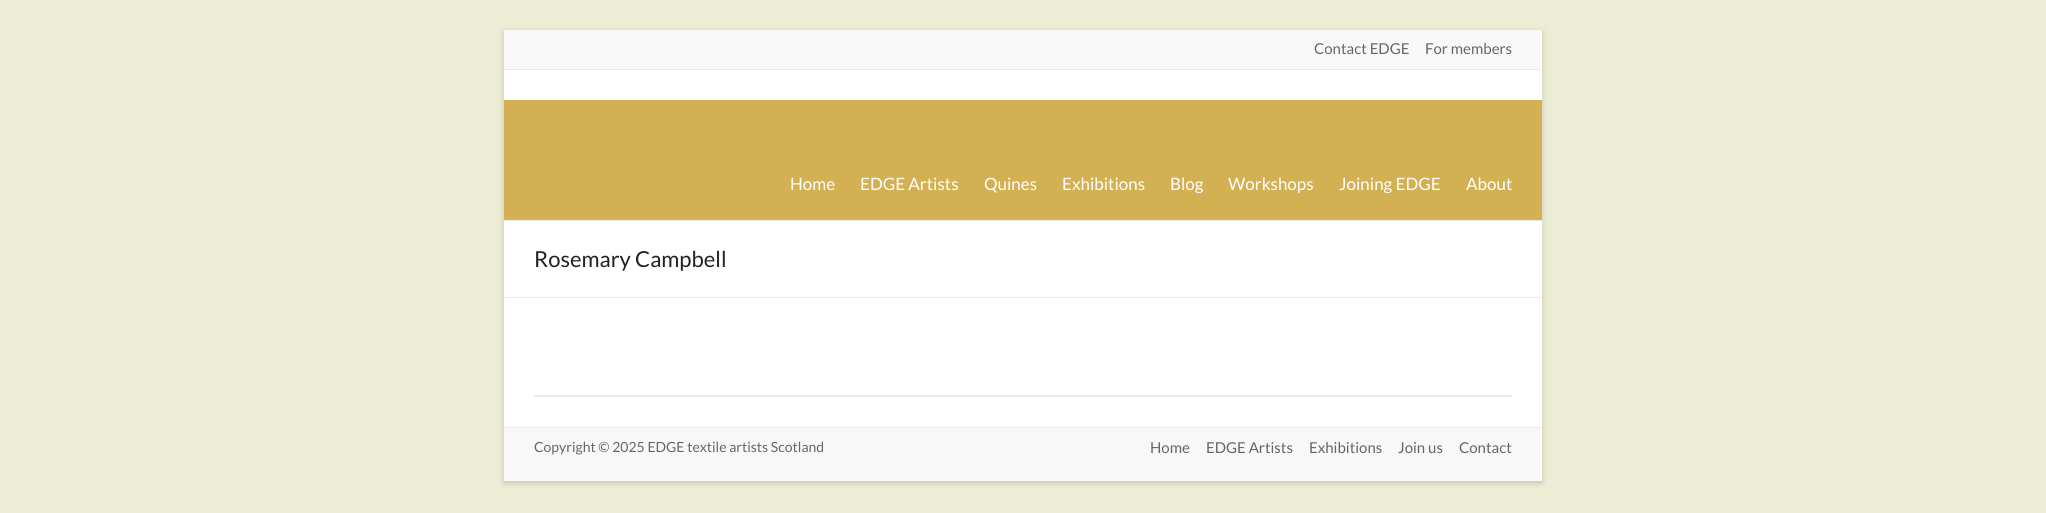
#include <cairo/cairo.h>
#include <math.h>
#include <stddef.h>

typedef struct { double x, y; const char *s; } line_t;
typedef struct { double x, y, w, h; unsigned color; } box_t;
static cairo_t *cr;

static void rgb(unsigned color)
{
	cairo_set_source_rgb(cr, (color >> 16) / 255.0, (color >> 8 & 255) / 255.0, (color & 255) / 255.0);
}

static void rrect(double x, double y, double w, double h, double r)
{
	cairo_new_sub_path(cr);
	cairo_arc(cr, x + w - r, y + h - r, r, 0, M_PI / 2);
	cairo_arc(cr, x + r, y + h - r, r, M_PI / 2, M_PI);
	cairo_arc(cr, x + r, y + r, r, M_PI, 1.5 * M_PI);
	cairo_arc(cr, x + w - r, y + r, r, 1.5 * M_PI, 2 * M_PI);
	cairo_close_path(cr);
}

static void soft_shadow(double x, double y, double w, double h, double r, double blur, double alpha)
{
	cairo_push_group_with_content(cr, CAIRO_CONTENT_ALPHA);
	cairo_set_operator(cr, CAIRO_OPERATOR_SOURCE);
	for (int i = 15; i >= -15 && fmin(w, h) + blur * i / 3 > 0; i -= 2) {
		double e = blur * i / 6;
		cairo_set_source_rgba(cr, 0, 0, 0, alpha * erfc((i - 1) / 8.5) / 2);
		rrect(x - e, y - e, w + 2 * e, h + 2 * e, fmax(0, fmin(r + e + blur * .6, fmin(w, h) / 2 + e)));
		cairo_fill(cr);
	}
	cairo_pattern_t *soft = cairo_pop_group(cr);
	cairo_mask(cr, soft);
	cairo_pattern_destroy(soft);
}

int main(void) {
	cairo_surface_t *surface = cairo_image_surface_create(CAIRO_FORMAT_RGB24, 2046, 513);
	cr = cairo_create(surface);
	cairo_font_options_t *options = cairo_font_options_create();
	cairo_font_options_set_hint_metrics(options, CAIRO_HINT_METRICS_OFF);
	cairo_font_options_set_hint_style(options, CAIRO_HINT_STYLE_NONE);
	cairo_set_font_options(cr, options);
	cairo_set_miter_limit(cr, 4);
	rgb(0xededd5);
	cairo_paint(cr);
	rgb(0x646464);
	soft_shadow(504, 32, 1038, 451, 0, 3, 0.3);
	{
		static const box_t items[] = {
			{504, 70, 1038, 357, 0xffffff},
			{504, 30, 1038, 39, 0xf8f8f8},
			{504, 69, 1038, 1, 0xeaeaea},
			{504, 100, 1038, 120, 0xd3b152},
			{504, 220, 1038, 1, 0xeaeaea},
			{504, 297, 1038, 1, 0xeaeaea},
			{534, 395, 978, 2, 0xeaeaea},
			{504, 428, 1038, 53, 0xf8f8f8},
			{504, 427, 1038, 1, 0xeaeaea},
		};
		for (size_t i = 0; i < sizeof items / sizeof *items; i++) {
			rgb(items[i].color);
			cairo_rectangle(cr, items[i].x, items[i].y, items[i].w, items[i].h);
			cairo_fill(cr);
		}
	}
	cairo_select_font_face(cr, "Lato", CAIRO_FONT_SLANT_NORMAL, CAIRO_FONT_WEIGHT_NORMAL);
	cairo_set_font_size(cr, 15);
	rgb(0x666666);
	cairo_move_to(cr, 1314, 54);
	cairo_show_text(cr, "Contact EDGE");
	cairo_move_to(cr, 1425, 54);
	cairo_show_text(cr, "For members");
	cairo_set_font_size(cr, 17);
	rgb(0xffffff);
	{
		static const line_t items[] = {
			{790, 190, "Home"},
			{860, 190, "EDGE Artists"},
			{984, 190, "Quines"},
			{1062, 190, "Exhibitions"},
			{1170, 190, "Blog"},
			{1228, 190, "Workshops"},
			{1339, 190, "Joining EDGE"},
			{1466, 190, "About"},
		};
		for (size_t i = 0; i < sizeof items / sizeof *items; i++) {
			cairo_move_to(cr, items[i].x, items[i].y);
			cairo_show_text(cr, items[i].s);
		}
	}
	cairo_set_font_size(cr, 22);
	rgb(0x222222);
	cairo_move_to(cr, 534, 267);
	cairo_show_text(cr, "Rosemary Campbell");
	cairo_set_font_size(cr, 14);
	rgb(0x666666);
	cairo_move_to(cr, 534, 452);
	cairo_show_text(cr, "Copyright © 2025 EDGE textile artists Scotland");
	cairo_set_font_size(cr, 15);
	{
		static const line_t items[] = {
			{1150, 453, "Home"},
			{1206, 453, "EDGE Artists"},
			{1309, 453, "Exhibitions"},
			{1398, 453, "Join us"},
			{1459, 453, "Contact"},
		};
		for (size_t i = 0; i < sizeof items / sizeof *items; i++) {
			cairo_move_to(cr, items[i].x, items[i].y);
			cairo_show_text(cr, items[i].s);
		}
	}
	cairo_surface_write_to_png(surface, "page.png");
	cairo_font_options_destroy(options);
	cairo_destroy(cr);
	cairo_surface_destroy(surface);
	return 0;
}
